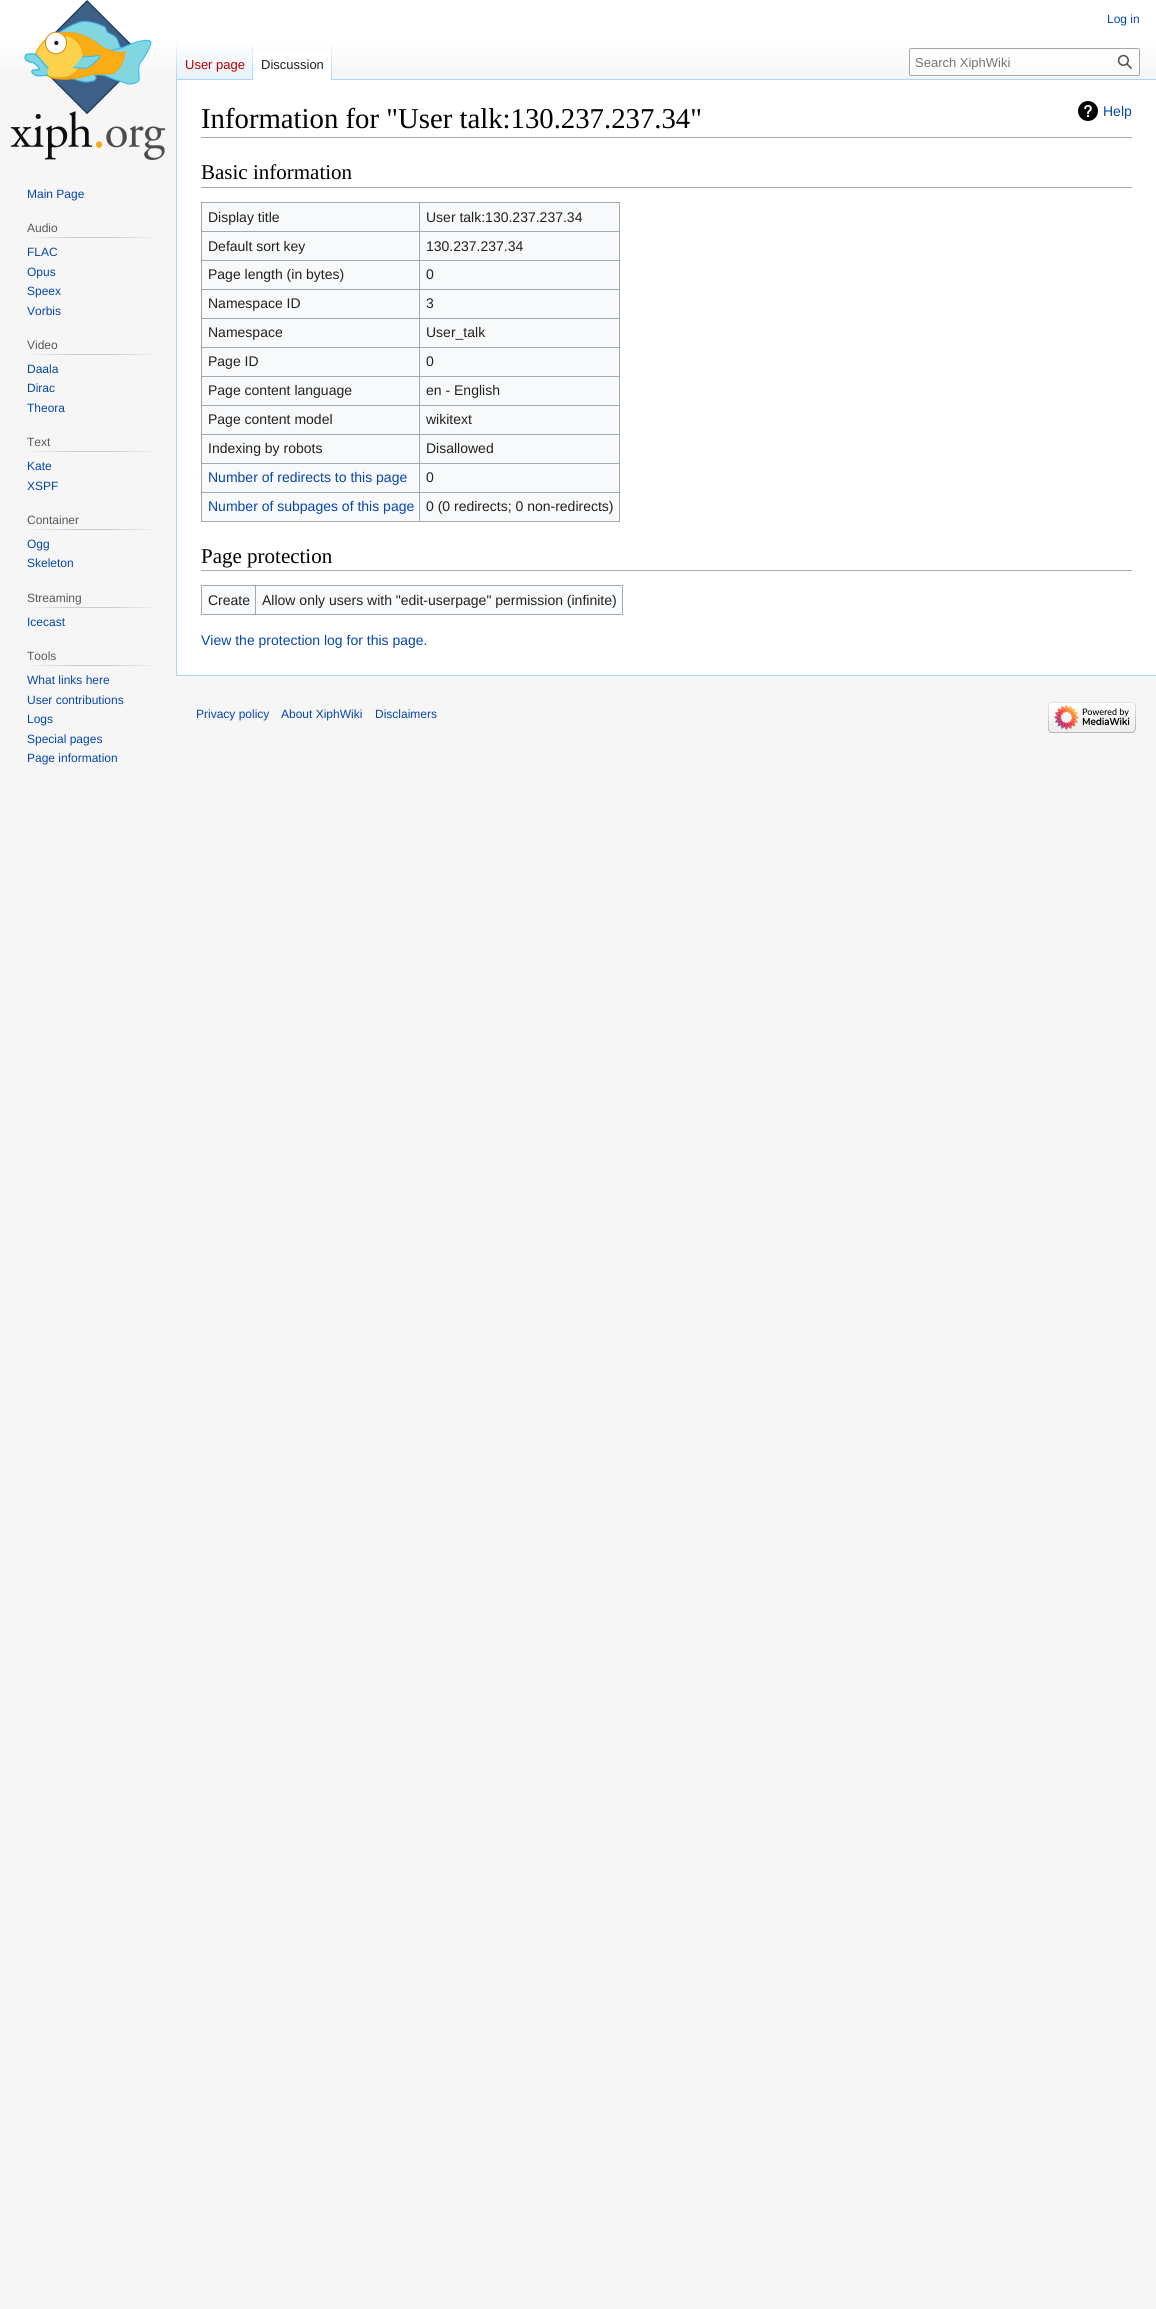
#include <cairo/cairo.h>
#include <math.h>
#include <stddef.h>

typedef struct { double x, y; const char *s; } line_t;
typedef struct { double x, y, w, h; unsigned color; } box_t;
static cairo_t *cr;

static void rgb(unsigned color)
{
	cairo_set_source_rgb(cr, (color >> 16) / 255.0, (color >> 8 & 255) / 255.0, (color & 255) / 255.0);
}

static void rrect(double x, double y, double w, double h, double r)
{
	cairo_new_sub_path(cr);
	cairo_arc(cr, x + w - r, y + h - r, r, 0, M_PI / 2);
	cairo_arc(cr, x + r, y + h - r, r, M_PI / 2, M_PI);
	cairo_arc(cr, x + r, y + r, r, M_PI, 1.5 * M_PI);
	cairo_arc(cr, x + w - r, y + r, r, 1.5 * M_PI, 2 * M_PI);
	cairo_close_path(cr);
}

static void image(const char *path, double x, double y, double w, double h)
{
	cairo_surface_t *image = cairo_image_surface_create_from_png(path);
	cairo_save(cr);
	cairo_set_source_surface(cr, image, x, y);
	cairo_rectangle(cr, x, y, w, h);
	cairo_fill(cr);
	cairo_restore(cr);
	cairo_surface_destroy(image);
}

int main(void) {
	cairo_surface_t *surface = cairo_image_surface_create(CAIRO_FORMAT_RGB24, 1156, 2309);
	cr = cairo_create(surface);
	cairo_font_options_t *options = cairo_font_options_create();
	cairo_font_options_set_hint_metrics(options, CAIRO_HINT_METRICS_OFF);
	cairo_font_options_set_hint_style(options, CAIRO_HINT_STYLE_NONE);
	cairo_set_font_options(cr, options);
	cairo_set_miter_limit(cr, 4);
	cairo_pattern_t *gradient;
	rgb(0xf6f6f6);
	cairo_paint(cr);
	gradient = cairo_pattern_create_linear(578, 0, 578, 80);
	cairo_pattern_add_color_stop_rgba(gradient, 0.5, 1, 1, 1, 1);
	cairo_pattern_add_color_stop_rgba(gradient, 1, 0.965, 0.965, 0.965, 1);
	cairo_set_source(cr, gradient);
	cairo_pattern_destroy(gradient);
	cairo_rectangle(cr, 0, 0, 1156, 69);
	cairo_fill(cr);
	rgb(0xa7d7f9);
	cairo_rectangle(cr, 176, 675, 980, 1);
	cairo_fill(cr);
	cairo_rectangle(cr, 176, 79, 1, 597);
	cairo_fill(cr);
	gradient = cairo_pattern_create_linear(177, 40, 177, 80);
	cairo_pattern_add_color_stop_rgba(gradient, 0, 0.655, 0.843, 0.976, 0);
	cairo_pattern_add_color_stop_rgba(gradient, 1, 0.655, 0.843, 0.976, 1);
	cairo_set_source(cr, gradient);
	cairo_pattern_destroy(gradient);
	cairo_rectangle(cr, 176, 40, 1, 40);
	cairo_fill(cr);
	gradient = cairo_pattern_create_linear(215, 80, 215, 40);
	cairo_pattern_add_color_stop_rgba(gradient, 0, 0.467, 0.757, 0.965, 1);
	cairo_pattern_add_color_stop_rgba(gradient, 0.03, 0.91, 0.949, 0.973, 1);
	cairo_pattern_add_color_stop_rgba(gradient, 1, 1, 1, 1, 1);
	cairo_set_source(cr, gradient);
	cairo_pattern_destroy(gradient);
	cairo_rectangle(cr, 177, 46, 76, 34);
	cairo_fill(cr);
	gradient = cairo_pattern_create_linear(253, 40, 253, 80);
	cairo_pattern_add_color_stop_rgba(gradient, 0, 0.655, 0.843, 0.976, 0);
	cairo_pattern_add_color_stop_rgba(gradient, 1, 0.655, 0.843, 0.976, 1);
	cairo_set_source(cr, gradient);
	cairo_pattern_destroy(gradient);
	cairo_rectangle(cr, 252, 40, 1, 40);
	cairo_fill(cr);
	rgb(0xffffff);
	cairo_rectangle(cr, 253, 51, 78, 29);
	cairo_fill(cr);
	gradient = cairo_pattern_create_linear(332, 40, 332, 80);
	cairo_pattern_add_color_stop_rgba(gradient, 0, 1, 1, 1, 1);
	cairo_pattern_add_color_stop_rgba(gradient, 1, 0.655, 0.843, 0.976, 1);
	cairo_set_source(cr, gradient);
	cairo_pattern_destroy(gradient);
	cairo_rectangle(cr, 331, 40, 1, 40);
	cairo_fill(cr);
	cairo_set_source_rgba(cr, 1, 1, 1, 0.5);
	rrect(909.5, 48.5, 230, 27, 1.5);
	cairo_fill_preserve(cr);
	rgb(0xa2a9b1);
	cairo_set_line_width(cr, 1);
	cairo_stroke(cr);
	image("img/1.png", 1117, 54, 15, 15);
	image("img/2.png", 10, 0, 156, 160);
	gradient = cairo_pattern_create_linear(27, 238, 158, 238);
	cairo_pattern_add_color_stop_rgba(gradient, 0, 0.965, 0.965, 0.965, 1);
	cairo_pattern_add_color_stop_rgba(gradient, 0.33, 0.784, 0.8, 0.82, 1);
	cairo_pattern_add_color_stop_rgba(gradient, 0.66, 0.784, 0.8, 0.82, 1);
	cairo_pattern_add_color_stop_rgba(gradient, 1, 0.965, 0.965, 0.965, 1);
	cairo_set_source(cr, gradient);
	cairo_pattern_destroy(gradient);
	cairo_rectangle(cr, 27, 237, 131, 1);
	cairo_fill(cr);
	gradient = cairo_pattern_create_linear(27, 355, 158, 355);
	cairo_pattern_add_color_stop_rgba(gradient, 0, 0.965, 0.965, 0.965, 1);
	cairo_pattern_add_color_stop_rgba(gradient, 0.33, 0.784, 0.8, 0.82, 1);
	cairo_pattern_add_color_stop_rgba(gradient, 0.66, 0.784, 0.8, 0.82, 1);
	cairo_pattern_add_color_stop_rgba(gradient, 1, 0.965, 0.965, 0.965, 1);
	cairo_set_source(cr, gradient);
	cairo_pattern_destroy(gradient);
	cairo_rectangle(cr, 27, 354, 131, 1);
	cairo_fill(cr);
	gradient = cairo_pattern_create_linear(27, 452, 158, 452);
	cairo_pattern_add_color_stop_rgba(gradient, 0, 0.965, 0.965, 0.965, 1);
	cairo_pattern_add_color_stop_rgba(gradient, 0.33, 0.784, 0.8, 0.82, 1);
	cairo_pattern_add_color_stop_rgba(gradient, 0.66, 0.784, 0.8, 0.82, 1);
	cairo_pattern_add_color_stop_rgba(gradient, 1, 0.965, 0.965, 0.965, 1);
	cairo_set_source(cr, gradient);
	cairo_pattern_destroy(gradient);
	cairo_rectangle(cr, 27, 451, 131, 1);
	cairo_fill(cr);
	gradient = cairo_pattern_create_linear(27, 530, 158, 530);
	cairo_pattern_add_color_stop_rgba(gradient, 0, 0.965, 0.965, 0.965, 1);
	cairo_pattern_add_color_stop_rgba(gradient, 0.33, 0.784, 0.8, 0.82, 1);
	cairo_pattern_add_color_stop_rgba(gradient, 0.66, 0.784, 0.8, 0.82, 1);
	cairo_pattern_add_color_stop_rgba(gradient, 1, 0.965, 0.965, 0.965, 1);
	cairo_set_source(cr, gradient);
	cairo_pattern_destroy(gradient);
	cairo_rectangle(cr, 27, 529, 131, 1);
	cairo_fill(cr);
	gradient = cairo_pattern_create_linear(27, 608, 158, 608);
	cairo_pattern_add_color_stop_rgba(gradient, 0, 0.965, 0.965, 0.965, 1);
	cairo_pattern_add_color_stop_rgba(gradient, 0.33, 0.784, 0.8, 0.82, 1);
	cairo_pattern_add_color_stop_rgba(gradient, 0.66, 0.784, 0.8, 0.82, 1);
	cairo_pattern_add_color_stop_rgba(gradient, 1, 0.965, 0.965, 0.965, 1);
	cairo_set_source(cr, gradient);
	cairo_pattern_destroy(gradient);
	cairo_rectangle(cr, 27, 607, 131, 1);
	cairo_fill(cr);
	gradient = cairo_pattern_create_linear(27, 666, 158, 666);
	cairo_pattern_add_color_stop_rgba(gradient, 0, 0.965, 0.965, 0.965, 1);
	cairo_pattern_add_color_stop_rgba(gradient, 0.33, 0.784, 0.8, 0.82, 1);
	cairo_pattern_add_color_stop_rgba(gradient, 0.66, 0.784, 0.8, 0.82, 1);
	cairo_pattern_add_color_stop_rgba(gradient, 1, 0.965, 0.965, 0.965, 1);
	cairo_set_source(cr, gradient);
	cairo_pattern_destroy(gradient);
	cairo_rectangle(cr, 27, 665, 131, 1);
	cairo_fill(cr);
	{
		static const box_t items[] = {
			{177, 80, 979, 595, 0xffffff},
			{332, 79, 824, 1, 0xa7d7f9},
			{201, 137, 931, 1, 0xa2a9b1},
		};
		for (size_t i = 0; i < sizeof items / sizeof *items; i++) {
			rgb(items[i].color);
			cairo_rectangle(cr, items[i].x, items[i].y, items[i].w, items[i].h);
			cairo_fill(cr);
		}
	}
	image("img/3.png", 1078, 101, 20, 20);
	{
		static const box_t items[] = {
			{201, 187, 931, 1, 0xa2a9b1},
			{202, 203, 417, 318, 0xf8f9fa},
			{201, 202, 419, 1, 0xa2a9b1},
			{619, 202, 1, 320, 0xa2a9b1},
			{201, 521, 419, 1, 0xa2a9b1},
			{201, 202, 1, 320, 0xa2a9b1},
			{419, 231, 201, 1, 0xa2a9b1},
			{419, 260, 201, 1, 0xa2a9b1},
			{419, 289, 201, 1, 0xa2a9b1},
			{419, 318, 201, 1, 0xa2a9b1},
			{419, 347, 201, 1, 0xa2a9b1},
			{419, 376, 201, 1, 0xa2a9b1},
			{419, 405, 201, 1, 0xa2a9b1},
			{419, 434, 201, 1, 0xa2a9b1},
			{419, 463, 201, 1, 0xa2a9b1},
			{419, 492, 201, 1, 0xa2a9b1},
			{419, 492, 1, 30, 0xa2a9b1},
			{201, 492, 219, 1, 0xa2a9b1},
			{419, 463, 1, 30, 0xa2a9b1},
			{201, 463, 219, 1, 0xa2a9b1},
			{419, 434, 1, 30, 0xa2a9b1},
			{201, 434, 219, 1, 0xa2a9b1},
			{419, 405, 1, 30, 0xa2a9b1},
			{201, 405, 219, 1, 0xa2a9b1},
			{419, 376, 1, 30, 0xa2a9b1},
			{201, 376, 219, 1, 0xa2a9b1},
			{419, 347, 1, 30, 0xa2a9b1},
			{201, 347, 219, 1, 0xa2a9b1},
			{419, 318, 1, 30, 0xa2a9b1},
			{201, 318, 219, 1, 0xa2a9b1},
			{419, 289, 1, 30, 0xa2a9b1},
			{201, 289, 219, 1, 0xa2a9b1},
			{419, 260, 1, 30, 0xa2a9b1},
			{201, 260, 219, 1, 0xa2a9b1},
			{419, 231, 1, 30, 0xa2a9b1},
			{201, 231, 219, 1, 0xa2a9b1},
			{419, 202, 1, 30, 0xa2a9b1},
			{201, 570, 931, 1, 0xa2a9b1},
			{202, 586, 420, 28, 0xf8f9fa},
			{201, 585, 422, 1, 0xa2a9b1},
			{622, 585, 1, 30, 0xa2a9b1},
			{201, 614, 422, 1, 0xa2a9b1},
			{201, 585, 1, 30, 0xa2a9b1},
			{255, 585, 1, 30, 0xa2a9b1},
		};
		for (size_t i = 0; i < sizeof items / sizeof *items; i++) {
			rgb(items[i].color);
			cairo_rectangle(cr, items[i].x, items[i].y, items[i].w, items[i].h);
			cairo_fill(cr);
		}
	}
	image("img/4.png", 1048, 702, 88, 31);
	cairo_select_font_face(cr, "Liberation Sans", CAIRO_FONT_SLANT_NORMAL, CAIRO_FONT_WEIGHT_NORMAL);
	cairo_set_font_size(cr, 12);
	rgb(0x0645ad);
	cairo_move_to(cr, 1107, 23);
	cairo_show_text(cr, "Log in");
	cairo_set_font_size(cr, 13);
	rgb(0xba0000);
	cairo_move_to(cr, 185, 69);
	cairo_show_text(cr, "User page");
	rgb(0x202122);
	cairo_move_to(cr, 261, 69);
	cairo_show_text(cr, "Discussion");
	rgb(0x72777d);
	cairo_move_to(cr, 915, 67);
	cairo_show_text(cr, "Search XiphWiki");
	cairo_set_font_size(cr, 12);
	rgb(0x0645ad);
	cairo_move_to(cr, 27, 198);
	cairo_show_text(cr, "Main Page");
	rgb(0x54595d);
	cairo_move_to(cr, 27, 232);
	cairo_show_text(cr, "Audio");
	rgb(0x0645ad);
	{
		static const line_t items[] = {
			{27, 256, "FLAC"},
			{27, 276, "Opus"},
			{27, 295, "Speex"},
			{27, 315, "Vorbis"},
		};
		for (size_t i = 0; i < sizeof items / sizeof *items; i++) {
			cairo_move_to(cr, items[i].x, items[i].y);
			cairo_show_text(cr, items[i].s);
		}
	}
	rgb(0x54595d);
	cairo_move_to(cr, 27, 349);
	cairo_show_text(cr, "Video");
	rgb(0x0645ad);
	{
		static const line_t items[] = {
			{27, 373, "Daala"},
			{27, 392, "Dirac"},
			{27, 412, "Theora"},
		};
		for (size_t i = 0; i < sizeof items / sizeof *items; i++) {
			cairo_move_to(cr, items[i].x, items[i].y);
			cairo_show_text(cr, items[i].s);
		}
	}
	rgb(0x54595d);
	cairo_move_to(cr, 27, 446);
	cairo_show_text(cr, "Text");
	rgb(0x0645ad);
	cairo_move_to(cr, 27, 470);
	cairo_show_text(cr, "Kate");
	cairo_move_to(cr, 27, 490);
	cairo_show_text(cr, "XSPF");
	rgb(0x54595d);
	cairo_move_to(cr, 27, 524);
	cairo_show_text(cr, "Container");
	rgb(0x0645ad);
	cairo_move_to(cr, 27, 548);
	cairo_show_text(cr, "Ogg");
	cairo_move_to(cr, 27, 567);
	cairo_show_text(cr, "Skeleton");
	rgb(0x54595d);
	cairo_move_to(cr, 27, 602);
	cairo_show_text(cr, "Streaming");
	rgb(0x0645ad);
	cairo_move_to(cr, 27, 626);
	cairo_show_text(cr, "Icecast");
	rgb(0x54595d);
	cairo_move_to(cr, 27, 660);
	cairo_show_text(cr, "Tools");
	rgb(0x0645ad);
	{
		static const line_t items[] = {
			{27, 684, "What links here"},
			{27, 704, "User contributions"},
			{27, 723, "Logs"},
			{27, 743, "Special pages"},
			{27, 762, "Page information"},
		};
		for (size_t i = 0; i < sizeof items / sizeof *items; i++) {
			cairo_move_to(cr, items[i].x, items[i].y);
			cairo_show_text(cr, items[i].s);
		}
	}
	cairo_select_font_face(cr, "Liberation Serif", CAIRO_FONT_SLANT_NORMAL, CAIRO_FONT_WEIGHT_NORMAL);
	cairo_set_font_size(cr, 28.75);
	rgb(0x000000);
	cairo_move_to(cr, 201, 128);
	cairo_show_text(cr, "Information for \"User talk:130.237.237.34\"");
	cairo_select_font_face(cr, "Liberation Sans", CAIRO_FONT_SLANT_NORMAL, CAIRO_FONT_WEIGHT_NORMAL);
	cairo_set_font_size(cr, 14);
	rgb(0x0645ad);
	cairo_move_to(cr, 1103, 116);
	cairo_show_text(cr, "Help");
	cairo_select_font_face(cr, "Liberation Serif", CAIRO_FONT_SLANT_NORMAL, CAIRO_FONT_WEIGHT_NORMAL);
	cairo_set_font_size(cr, 21);
	rgb(0x000000);
	cairo_move_to(cr, 201, 179);
	cairo_show_text(cr, "Basic information");
	cairo_select_font_face(cr, "Liberation Sans", CAIRO_FONT_SLANT_NORMAL, CAIRO_FONT_WEIGHT_NORMAL);
	cairo_set_font_size(cr, 14);
	rgb(0x202122);
	{
		static const line_t items[] = {
			{208, 222, "Display title"},
			{426, 222, "User talk:130.237.237.34"},
			{208, 251, "Default sort key"},
			{426, 251, "130.237.237.34"},
			{208, 279, "Page length (in bytes)"},
			{426, 279, "0"},
			{208, 308, "Namespace ID"},
			{426, 308, "3"},
			{208, 337, "Namespace"},
			{426, 337, "User_talk"},
			{208, 366, "Page ID"},
			{426, 366, "0"},
			{208, 395, "Page content language"},
			{426, 395, "en - English"},
			{208, 424, "Page content model"},
			{426, 424, "wikitext"},
			{208, 453, "Indexing by robots"},
			{426, 453, "Disallowed"},
		};
		for (size_t i = 0; i < sizeof items / sizeof *items; i++) {
			cairo_move_to(cr, items[i].x, items[i].y);
			cairo_show_text(cr, items[i].s);
		}
	}
	rgb(0x0645ad);
	cairo_move_to(cr, 208, 482);
	cairo_show_text(cr, "Number of redirects to this page");
	rgb(0x202122);
	cairo_move_to(cr, 426, 482);
	cairo_show_text(cr, "0");
	rgb(0x0645ad);
	cairo_move_to(cr, 208, 511);
	cairo_show_text(cr, "Number of subpages of this page");
	rgb(0x202122);
	cairo_move_to(cr, 426, 511);
	cairo_show_text(cr, "0 (0 redirects; 0 non-redirects)");
	cairo_select_font_face(cr, "Liberation Serif", CAIRO_FONT_SLANT_NORMAL, CAIRO_FONT_WEIGHT_NORMAL);
	cairo_set_font_size(cr, 21);
	rgb(0x000000);
	cairo_move_to(cr, 201, 563);
	cairo_show_text(cr, "Page protection");
	cairo_select_font_face(cr, "Liberation Sans", CAIRO_FONT_SLANT_NORMAL, CAIRO_FONT_WEIGHT_NORMAL);
	cairo_set_font_size(cr, 14);
	rgb(0x202122);
	cairo_move_to(cr, 208, 605);
	cairo_show_text(cr, "Create");
	cairo_move_to(cr, 262, 605);
	cairo_show_text(cr, "Allow only users with \"edit-userpage\" permission (infinite)");
	rgb(0x0645ad);
	cairo_move_to(cr, 201, 645);
	cairo_show_text(cr, "View the protection log for this page.");
	cairo_set_font_size(cr, 12);
	{
		static const line_t items[] = {
			{196, 718, "Privacy policy"},
			{281, 718, "About XiphWiki"},
			{375, 718, "Disclaimers"},
		};
		for (size_t i = 0; i < sizeof items / sizeof *items; i++) {
			cairo_move_to(cr, items[i].x, items[i].y);
			cairo_show_text(cr, items[i].s);
		}
	}
	cairo_surface_write_to_png(surface, "page.png");
	cairo_font_options_destroy(options);
	cairo_destroy(cr);
	cairo_surface_destroy(surface);
	return 0;
}
